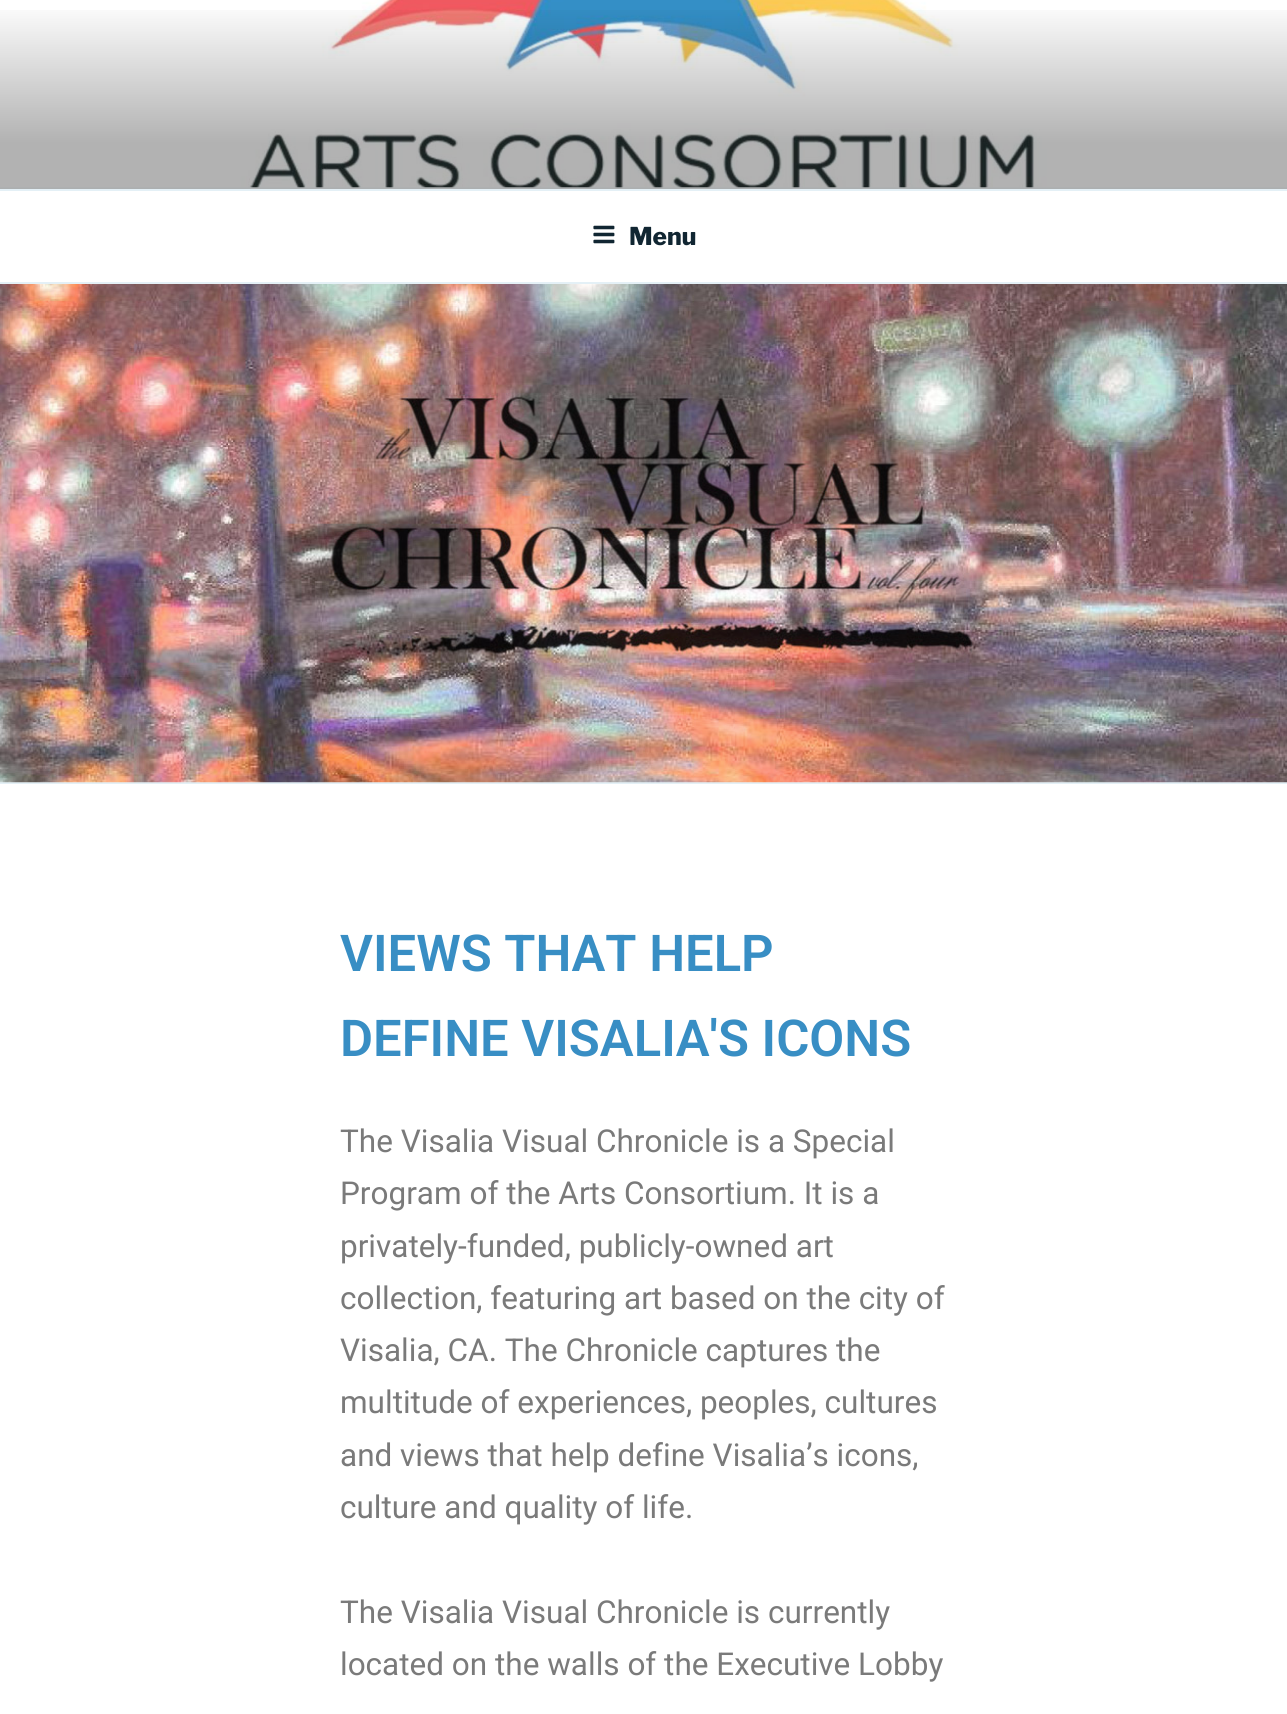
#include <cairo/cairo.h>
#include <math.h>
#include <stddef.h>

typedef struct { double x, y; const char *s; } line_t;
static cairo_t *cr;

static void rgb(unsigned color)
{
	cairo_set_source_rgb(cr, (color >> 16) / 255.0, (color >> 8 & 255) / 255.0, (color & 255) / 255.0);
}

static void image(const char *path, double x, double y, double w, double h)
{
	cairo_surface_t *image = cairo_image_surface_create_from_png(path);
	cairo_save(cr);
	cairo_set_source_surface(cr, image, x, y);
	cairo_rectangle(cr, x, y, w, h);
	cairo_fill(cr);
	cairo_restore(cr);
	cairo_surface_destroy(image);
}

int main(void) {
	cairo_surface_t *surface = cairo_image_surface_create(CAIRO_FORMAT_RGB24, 1287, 1714);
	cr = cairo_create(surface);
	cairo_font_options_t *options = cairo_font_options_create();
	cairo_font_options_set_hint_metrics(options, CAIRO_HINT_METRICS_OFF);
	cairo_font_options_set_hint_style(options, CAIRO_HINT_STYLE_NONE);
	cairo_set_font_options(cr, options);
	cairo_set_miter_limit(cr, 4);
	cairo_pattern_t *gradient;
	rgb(0xffffff);
	cairo_paint(cr);
	rgb(0xf7fbfc);
	cairo_rectangle(cr, 0, 187, 1287, 2);
	cairo_fill(cr);
	image("img/1.png", 0, 0, 1287, 188);
	gradient = cairo_pattern_create_linear(644, 0, 644, 189);
	cairo_pattern_add_color_stop_rgba(gradient, 0, 0, 0, 0, 0);
	cairo_pattern_add_color_stop_rgba(gradient, 0.75, 0, 0, 0, 0.3);
	cairo_pattern_add_color_stop_rgba(gradient, 1, 0, 0, 0, 0.3);
	cairo_set_source(cr, gradient);
	cairo_pattern_destroy(gradient);
	cairo_rectangle(cr, 0, 10, 1287, 179);
	cairo_fill(cr);
	rgb(0xe4f0f6);
	cairo_rectangle(cr, 0, 189, 1287, 2);
	cairo_fill(cr);
	cairo_rectangle(cr, 0, 282, 1287, 2);
	cairo_fill(cr);
	image("img/2.png", 593, 225, 22, 19);
	cairo_rectangle(cr, 0, 782, 1287, 2);
	cairo_fill(cr);
	image("img/3.png", 0, 284, 1287, 499);
	cairo_select_font_face(cr, "Libre Franklin Thin", CAIRO_FONT_SLANT_NORMAL, CAIRO_FONT_WEIGHT_NORMAL);
	cairo_set_font_size(cr, 24.5);
	rgb(0x112632);
	cairo_move_to(cr, 629, 245);
	cairo_show_text(cr, "Menu");
	cairo_select_font_face(cr, "Roboto SemiBold", CAIRO_FONT_SLANT_NORMAL, CAIRO_FONT_WEIGHT_NORMAL);
	cairo_set_font_size(cr, 50.75);
	rgb(0x388ec4);
	cairo_move_to(cr, 340, 971);
	cairo_show_text(cr, "VIEWS THAT HELP");
	cairo_move_to(cr, 340, 1056);
	cairo_show_text(cr, "DEFINE VISALIA'S ICONS");
	cairo_select_font_face(cr, "Roboto", CAIRO_FONT_SLANT_NORMAL, CAIRO_FONT_WEIGHT_NORMAL);
	cairo_set_font_size(cr, 31.5);
	rgb(0x7a7a7a);
	{
		static const line_t items[] = {
			{340, 1152, "The Visalia Visual Chronicle is a Special"},
			{340, 1204, "Program of the Arts Consortium. It is a"},
			{340, 1257, "privately-funded, publicly-owned art"},
			{340, 1309, "collection, featuring art based on the city of"},
			{340, 1361, "Visalia, CA. The Chronicle captures the"},
			{340, 1413, "multitude of experiences, peoples, cultures"},
			{340, 1466, "and views that help define Visalia’s icons,"},
			{340, 1518, "culture and quality of life."},
			{340, 1623, "The Visalia Visual Chronicle is currently"},
			{340, 1675, "located on the walls of the Executive Lobby"},
		};
		for (size_t i = 0; i < sizeof items / sizeof *items; i++) {
			cairo_move_to(cr, items[i].x, items[i].y);
			cairo_show_text(cr, items[i].s);
		}
	}
	cairo_surface_write_to_png(surface, "page.png");
	cairo_font_options_destroy(options);
	cairo_destroy(cr);
	cairo_surface_destroy(surface);
	return 0;
}
